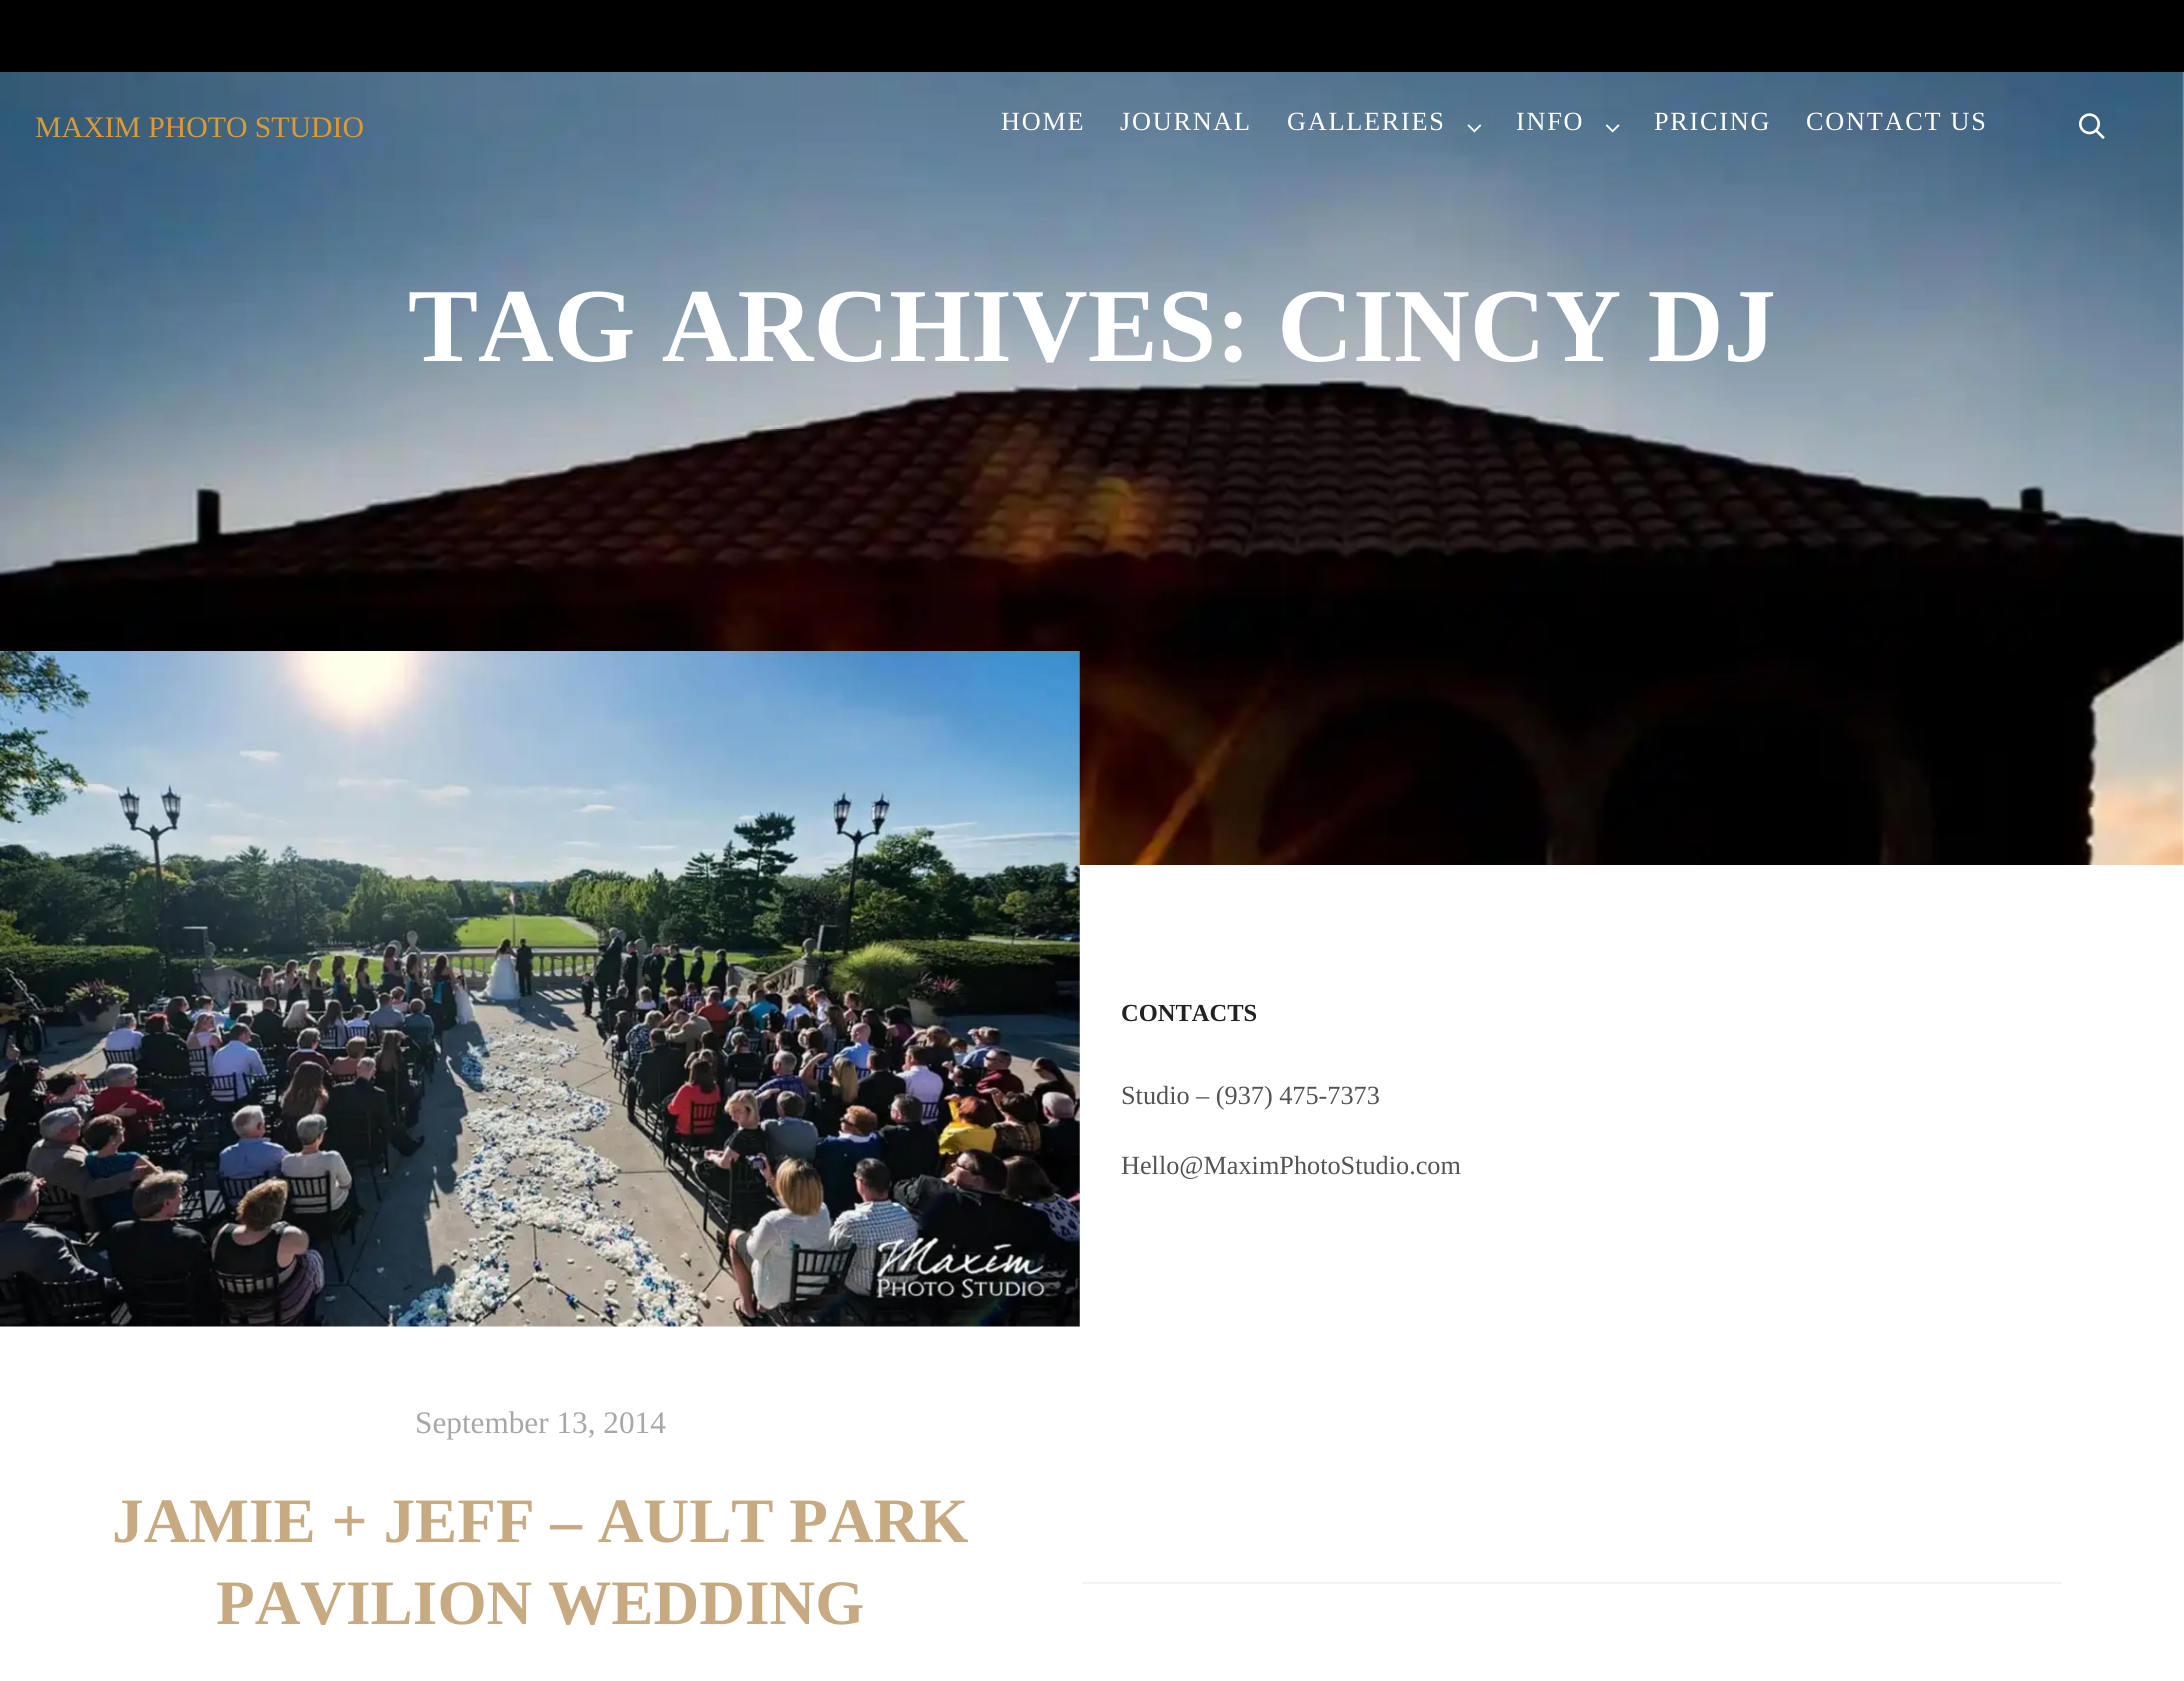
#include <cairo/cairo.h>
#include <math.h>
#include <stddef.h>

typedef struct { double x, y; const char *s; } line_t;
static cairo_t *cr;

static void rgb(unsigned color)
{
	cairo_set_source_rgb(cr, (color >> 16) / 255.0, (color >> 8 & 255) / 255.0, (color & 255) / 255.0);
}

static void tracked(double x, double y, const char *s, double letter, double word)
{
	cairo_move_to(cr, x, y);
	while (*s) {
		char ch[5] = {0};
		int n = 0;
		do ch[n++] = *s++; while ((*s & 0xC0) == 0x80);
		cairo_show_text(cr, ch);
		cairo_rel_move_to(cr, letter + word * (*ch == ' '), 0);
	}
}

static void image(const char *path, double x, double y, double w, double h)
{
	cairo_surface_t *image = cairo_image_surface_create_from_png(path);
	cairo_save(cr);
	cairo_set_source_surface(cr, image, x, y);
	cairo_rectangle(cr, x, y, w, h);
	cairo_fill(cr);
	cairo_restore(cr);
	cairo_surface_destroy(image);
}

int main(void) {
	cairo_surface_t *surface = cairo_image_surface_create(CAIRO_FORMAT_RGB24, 2184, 1681);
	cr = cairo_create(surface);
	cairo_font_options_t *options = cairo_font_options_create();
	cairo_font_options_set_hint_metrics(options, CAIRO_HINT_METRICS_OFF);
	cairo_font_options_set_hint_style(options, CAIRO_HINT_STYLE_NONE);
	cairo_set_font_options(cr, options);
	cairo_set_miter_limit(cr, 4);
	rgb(0xffffff);
	cairo_paint(cr);
	image("img/1.png", 0, 72, 2184, 793);
	rgb(0x000000);
	cairo_rectangle(cr, 0, 0, 2184, 72);
	cairo_fill(cr);
	image("img/2.png", 1467, 124, 15, 9);
	image("img/3.png", 1605, 124, 15, 9);
	image("img/4.png", 2079, 113, 26, 26);
	image("img/5.png", 0, 651, 1080, 676);
	rgb(0xf2f2f2);
	cairo_rectangle(cr, 1082, 1582, 980, 2);
	cairo_fill(cr);
	cairo_select_font_face(cr, "Liberation Serif", CAIRO_FONT_SLANT_NORMAL, CAIRO_FONT_WEIGHT_NORMAL);
	cairo_set_font_size(cr, 29.75);
	rgb(0xdd9933);
	cairo_move_to(cr, 35, 137);
	cairo_show_text(cr, "MAXIM PHOTO STUDIO");
	cairo_set_font_size(cr, 26.25);
	rgb(0xffffff);
	{
		static const line_t items[] = {
			{1001, 130, "HOME"},
			{1120, 130, "JOURNAL"},
			{1287, 130, "GALLERIES"},
			{1516, 130, "INFO"},
			{1654, 130, "PRICING"},
			{1806, 130, "CONTACT US"},
		};
		for (size_t i = 0; i < sizeof items / sizeof *items; i++) {
			tracked(items[i].x, items[i].y, items[i].s, 1.75, 0);
		}
	}
	cairo_select_font_face(cr, "Liberation Serif", CAIRO_FONT_SLANT_NORMAL, CAIRO_FONT_WEIGHT_BOLD);
	cairo_set_font_size(cr, 105);
	cairo_move_to(cr, 408, 361);
	cairo_show_text(cr, "TAG ARCHIVES: CINCY DJ");
	cairo_select_font_face(cr, "Liberation Serif", CAIRO_FONT_SLANT_NORMAL, CAIRO_FONT_WEIGHT_NORMAL);
	cairo_set_font_size(cr, 31.25);
	rgb(0xa7a7a7);
	cairo_move_to(cr, 415, 1433);
	cairo_show_text(cr, "September 13, 2014");
	cairo_select_font_face(cr, "Liberation Serif", CAIRO_FONT_SLANT_NORMAL, CAIRO_FONT_WEIGHT_BOLD);
	cairo_set_font_size(cr, 63.25);
	rgb(0xc7aa82);
	cairo_move_to(cr, 112, 1542);
	cairo_show_text(cr, "JAMIE + JEFF – AULT PARK");
	cairo_move_to(cr, 216, 1624);
	cairo_show_text(cr, "PAVILION WEDDING");
	cairo_set_font_size(cr, 24.5);
	rgb(0x222222);
	cairo_move_to(cr, 1121, 1021);
	cairo_show_text(cr, "CONTACTS");
	cairo_select_font_face(cr, "Liberation Serif", CAIRO_FONT_SLANT_NORMAL, CAIRO_FONT_WEIGHT_NORMAL);
	cairo_set_font_size(cr, 26.25);
	rgb(0x535353);
	cairo_move_to(cr, 1121, 1104);
	cairo_show_text(cr, "Studio – (937) 475-7373");
	cairo_move_to(cr, 1121, 1174);
	cairo_show_text(cr, "Hello@MaximPhotoStudio.com");
	cairo_surface_write_to_png(surface, "page.png");
	cairo_font_options_destroy(options);
	cairo_destroy(cr);
	cairo_surface_destroy(surface);
	return 0;
}
